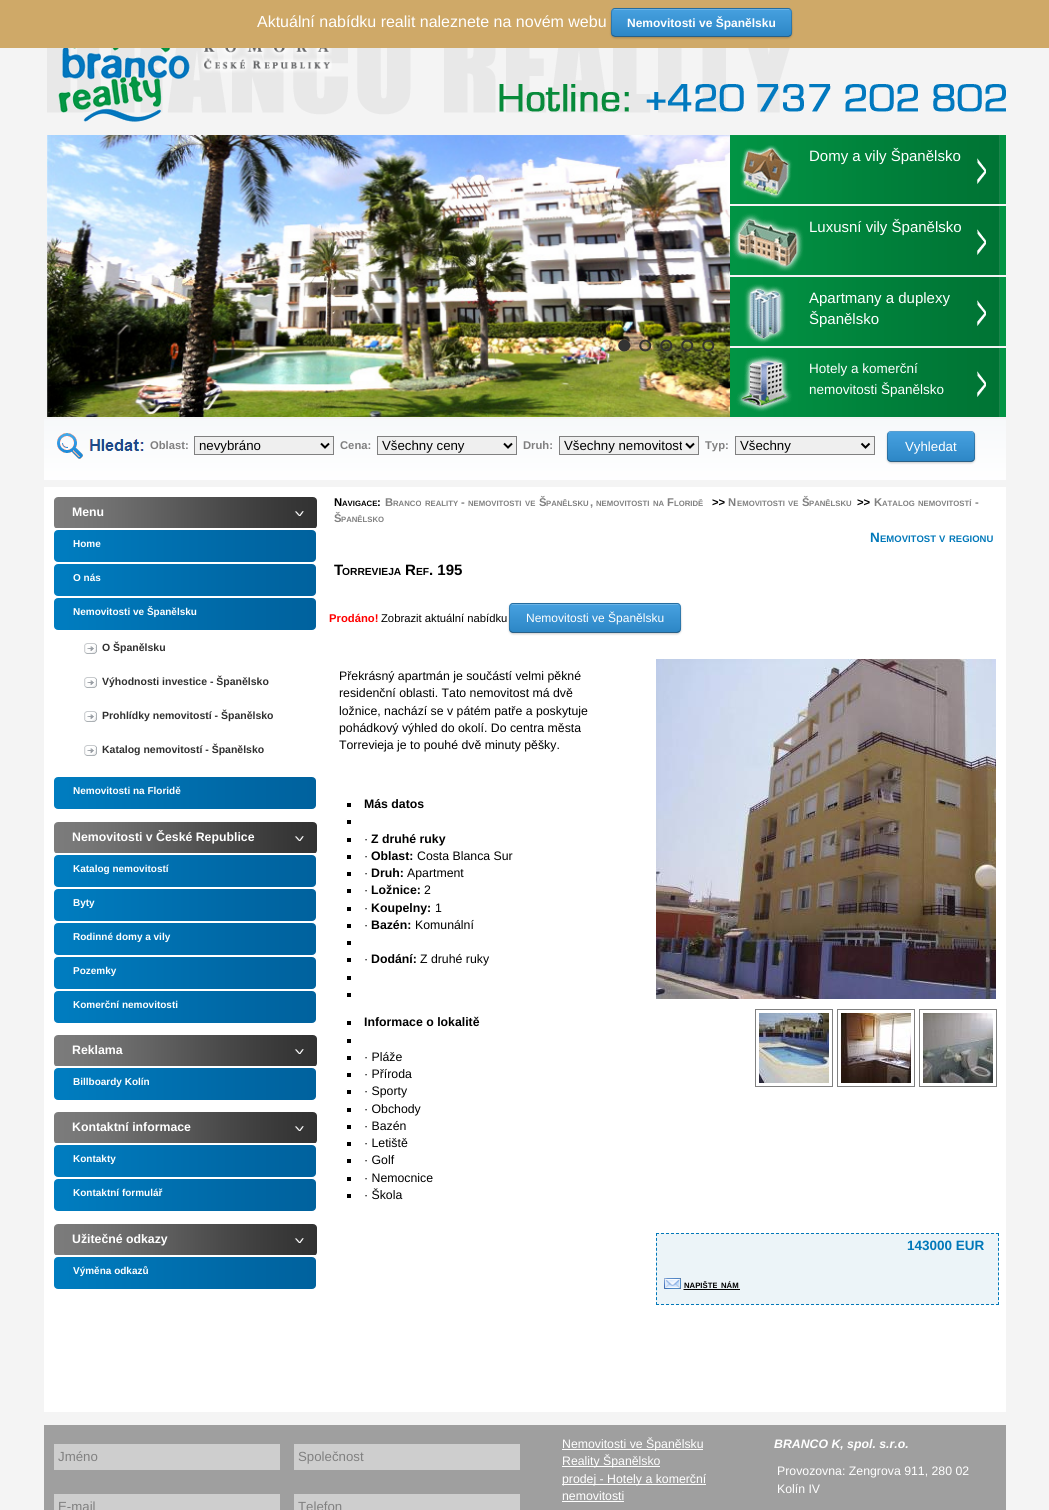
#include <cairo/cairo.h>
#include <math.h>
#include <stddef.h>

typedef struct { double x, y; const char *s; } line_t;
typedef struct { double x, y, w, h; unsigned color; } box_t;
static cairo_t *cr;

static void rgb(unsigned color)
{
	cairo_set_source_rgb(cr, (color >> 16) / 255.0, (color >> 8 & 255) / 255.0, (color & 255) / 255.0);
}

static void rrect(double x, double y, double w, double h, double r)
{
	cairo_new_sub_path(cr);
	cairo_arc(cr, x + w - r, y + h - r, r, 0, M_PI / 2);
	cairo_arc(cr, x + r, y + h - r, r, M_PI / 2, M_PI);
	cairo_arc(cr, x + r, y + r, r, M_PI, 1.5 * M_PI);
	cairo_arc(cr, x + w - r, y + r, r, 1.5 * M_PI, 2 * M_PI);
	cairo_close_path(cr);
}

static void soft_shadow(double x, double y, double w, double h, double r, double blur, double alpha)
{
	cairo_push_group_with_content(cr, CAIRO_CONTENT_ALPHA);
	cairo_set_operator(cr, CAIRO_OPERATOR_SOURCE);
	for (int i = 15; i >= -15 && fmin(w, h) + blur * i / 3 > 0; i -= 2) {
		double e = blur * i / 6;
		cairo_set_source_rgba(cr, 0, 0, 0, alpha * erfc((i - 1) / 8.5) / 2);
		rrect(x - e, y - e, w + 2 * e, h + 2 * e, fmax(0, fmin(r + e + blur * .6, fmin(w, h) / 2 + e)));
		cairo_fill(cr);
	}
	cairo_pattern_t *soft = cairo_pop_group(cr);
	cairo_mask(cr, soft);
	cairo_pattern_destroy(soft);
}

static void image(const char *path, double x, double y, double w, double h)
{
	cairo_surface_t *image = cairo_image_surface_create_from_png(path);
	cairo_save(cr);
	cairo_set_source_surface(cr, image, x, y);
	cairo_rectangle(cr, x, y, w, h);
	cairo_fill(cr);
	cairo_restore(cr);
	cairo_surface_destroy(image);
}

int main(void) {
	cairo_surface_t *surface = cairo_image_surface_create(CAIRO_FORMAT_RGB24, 1049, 1510);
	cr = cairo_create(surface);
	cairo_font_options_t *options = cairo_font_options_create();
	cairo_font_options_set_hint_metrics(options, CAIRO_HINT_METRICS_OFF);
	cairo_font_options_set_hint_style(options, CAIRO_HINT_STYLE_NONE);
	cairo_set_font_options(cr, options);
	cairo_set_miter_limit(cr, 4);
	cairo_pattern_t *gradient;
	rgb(0xf4f4f4);
	cairo_paint(cr);
	rgb(0xcfa968);
	cairo_rectangle(cr, 0, 0, 1049, 48);
	cairo_fill(cr);
	rgb(0x000000);
	soft_shadow(611, 9, 181, 29, 4, 1, 0.2);
	rgb(0x3296dd);
	rrect(611, 8, 181, 29, 4);
	cairo_fill(cr);
	cairo_save(cr);
	rrect(611, 8, 181, 29, 4);
	cairo_clip(cr);
	gradient = cairo_pattern_create_linear(702, 9, 702, -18);
	cairo_pattern_add_color_stop_rgba(gradient, 0, 0, 0, 0, 0.1);
	cairo_pattern_add_color_stop_rgba(gradient, 1, 1, 1, 1, 0.1);
	cairo_set_source(cr, gradient);
	cairo_pattern_destroy(gradient);
	cairo_rectangle(cr, 611, 8, 181, 1);
	cairo_fill(cr);
	gradient = cairo_pattern_create_linear(702, 36, 702, 9);
	cairo_pattern_add_color_stop_rgba(gradient, 0, 0, 0, 0, 0.1);
	cairo_pattern_add_color_stop_rgba(gradient, 1, 1, 1, 1, 0.1);
	cairo_set_source(cr, gradient);
	cairo_pattern_destroy(gradient);
	cairo_rectangle(cr, 611, 9, 181, 27);
	cairo_fill(cr);
	gradient = cairo_pattern_create_linear(702, 63, 702, 36);
	cairo_pattern_add_color_stop_rgba(gradient, 0, 0, 0, 0, 0.1);
	cairo_pattern_add_color_stop_rgba(gradient, 1, 1, 1, 1, 0.1);
	cairo_set_source(cr, gradient);
	cairo_pattern_destroy(gradient);
	cairo_rectangle(cr, 611, 36, 181, 1);
	cairo_fill(cr);
	cairo_restore(cr);
	cairo_new_path(cr);
	cairo_move_to(cr, 790.5, 35.5);
	cairo_line_to(cr, 788.5, 36.5);
	cairo_line_to(cr, 644, 36.5);
	cairo_line_to(cr, 615, 36.5);
	cairo_line_to(cr, 612.5, 35.5);
	cairo_set_source_rgba(cr, 0, 0, 0, 0.4);
	cairo_set_line_width(cr, 1);
	cairo_stroke(cr);
	cairo_new_path(cr);
	cairo_move_to(cr, 612.5, 35.5);
	cairo_curve_to(cr, 610.5, 33.5, 611.5, 25, 611.5, 22.5);
	cairo_line_to(cr, 611.5, 15.5);
	cairo_curve_to(cr, 611.5, 13, 611, 8.5, 615, 8.5);
	cairo_line_to(cr, 788, 8.5);
	cairo_curve_to(cr, 792, 8.5, 791.5, 13, 791.5, 15.5);
	cairo_line_to(cr, 791.5, 22.5);
	cairo_curve_to(cr, 791.5, 25, 792.5, 33.5, 790.5, 35.5);
	cairo_set_source_rgba(cr, 0, 0, 0, 0.2);
	cairo_stroke(cr);
	cairo_set_source_rgba(cr, 1, 1, 1, 0.2);
	cairo_rectangle(cr, 614, 9, 175, 1);
	cairo_fill(cr);
	image("img/1.png", 47, 48, 959, 74);
	image("img/2.png", 201, 48, 131, 25);
	image("img/9.png", 726, 135, 274, 69);
	image("img/3.png", 47, 135, 683, 282);
	image("img/4.png", 618, 339, 13, 13);
	image("img/5.png", 639, 339, 13, 13);
	image("img/6.png", 660, 339, 13, 13);
	image("img/7.png", 681, 339, 13, 13);
	image("img/8.png", 702, 339, 13, 13);
	rgb(0x009443);
	cairo_rectangle(cr, 1000, 135, 6, 69);
	cairo_fill(cr);
	image("img/10.png", 730, 206, 270, 69);
	cairo_rectangle(cr, 1000, 206, 6, 69);
	cairo_fill(cr);
	image("img/11.png", 730, 277, 276, 69);
	image("img/12.png", 730, 348, 276, 69);
	image("img/13.png", 44, 419, 962, 61);
	rgb(0xefefef);
	cairo_rectangle(cr, 194.5, 436.5, 139, 18);
	cairo_fill_preserve(cr);
	rgb(0x808080);
	cairo_stroke(cr);
	cairo_new_path(cr);
	cairo_move_to(cr, 321, 443.5);
	cairo_line_to(cr, 325, 447.5);
	cairo_line_to(cr, 329, 443.5);
	rgb(0x000000);
	cairo_set_line_width(cr, 2);
	cairo_stroke(cr);
	rgb(0xefefef);
	cairo_rectangle(cr, 377.5, 436.5, 139, 18);
	cairo_fill_preserve(cr);
	rgb(0x808080);
	cairo_set_line_width(cr, 1);
	cairo_stroke(cr);
	cairo_new_path(cr);
	cairo_move_to(cr, 504, 443.5);
	cairo_line_to(cr, 508, 447.5);
	cairo_line_to(cr, 512, 443.5);
	rgb(0x000000);
	cairo_set_line_width(cr, 2);
	cairo_stroke(cr);
	rgb(0xefefef);
	cairo_rectangle(cr, 559.5, 436.5, 139, 18);
	cairo_fill_preserve(cr);
	rgb(0x808080);
	cairo_set_line_width(cr, 1);
	cairo_stroke(cr);
	cairo_new_path(cr);
	cairo_move_to(cr, 686, 443.5);
	cairo_line_to(cr, 690, 447.5);
	cairo_line_to(cr, 694, 443.5);
	rgb(0x000000);
	cairo_set_line_width(cr, 2);
	cairo_stroke(cr);
	rgb(0xefefef);
	cairo_rectangle(cr, 735.5, 436.5, 139, 18);
	cairo_fill_preserve(cr);
	rgb(0x808080);
	cairo_set_line_width(cr, 1);
	cairo_stroke(cr);
	cairo_new_path(cr);
	cairo_move_to(cr, 861.5, 443.5);
	cairo_line_to(cr, 865.5, 447.5);
	cairo_line_to(cr, 869.5, 443.5);
	rgb(0x000000);
	cairo_set_line_width(cr, 2);
	cairo_stroke(cr);
	rgb(0x000000);
	soft_shadow(887, 432, 88, 31, 4, 1, 0.2);
	rgb(0x3296dd);
	rrect(887, 431, 88, 31, 4);
	cairo_fill(cr);
	cairo_save(cr);
	rrect(887, 431, 88, 31, 4);
	cairo_clip(cr);
	gradient = cairo_pattern_create_linear(931, 432, 931, 403);
	cairo_pattern_add_color_stop_rgba(gradient, 0, 0, 0, 0, 0.1);
	cairo_pattern_add_color_stop_rgba(gradient, 1, 1, 1, 1, 0.1);
	cairo_set_source(cr, gradient);
	cairo_pattern_destroy(gradient);
	cairo_rectangle(cr, 887, 431, 88, 1);
	cairo_fill(cr);
	gradient = cairo_pattern_create_linear(931, 461, 931, 432);
	cairo_pattern_add_color_stop_rgba(gradient, 0, 0, 0, 0, 0.1);
	cairo_pattern_add_color_stop_rgba(gradient, 1, 1, 1, 1, 0.1);
	cairo_set_source(cr, gradient);
	cairo_pattern_destroy(gradient);
	cairo_rectangle(cr, 887, 432, 88, 29);
	cairo_fill(cr);
	gradient = cairo_pattern_create_linear(931, 490, 931, 461);
	cairo_pattern_add_color_stop_rgba(gradient, 0, 0, 0, 0, 0.1);
	cairo_pattern_add_color_stop_rgba(gradient, 1, 1, 1, 1, 0.1);
	cairo_set_source(cr, gradient);
	cairo_pattern_destroy(gradient);
	cairo_rectangle(cr, 887, 461, 88, 1);
	cairo_fill(cr);
	cairo_restore(cr);
	cairo_new_path(cr);
	cairo_move_to(cr, 888.5, 432.5);
	cairo_line_to(cr, 890.5, 431.5);
	cairo_line_to(cr, 971.5, 431.5);
	cairo_line_to(cr, 973.5, 432.5);
	cairo_set_source_rgba(cr, 1, 1, 1, 0.2);
	cairo_set_line_width(cr, 1);
	cairo_stroke(cr);
	cairo_new_path(cr);
	cairo_move_to(cr, 973.5, 432.5);
	cairo_curve_to(cr, 974, 433, 974.5, 434, 974.5, 435);
	cairo_line_to(cr, 974.5, 458);
	cairo_curve_to(cr, 974.5, 459, 974, 460, 973.5, 460.5);
	cairo_set_source_rgba(cr, 0, 0, 0, 0.2);
	cairo_stroke(cr);
	cairo_new_path(cr);
	cairo_move_to(cr, 973.5, 460.5);
	cairo_line_to(cr, 971.5, 461.5);
	cairo_line_to(cr, 890.5, 461.5);
	cairo_line_to(cr, 888.5, 460.5);
	cairo_set_source_rgba(cr, 0, 0, 0, 0.4);
	cairo_stroke(cr);
	cairo_new_path(cr);
	cairo_move_to(cr, 888.5, 460.5);
	cairo_curve_to(cr, 888, 460, 887.5, 459, 887.5, 458);
	cairo_line_to(cr, 887.5, 435);
	cairo_curve_to(cr, 887.5, 434, 888, 433, 888.5, 432.5);
	cairo_set_source_rgba(cr, 0, 0, 0, 0.2);
	cairo_stroke(cr);
	rgb(0xffffff);
	cairo_rectangle(cr, 44, 487, 962, 925);
	cairo_fill(cr);
	image("img/14.png", 54, 497, 263, 31);
	image("img/15.png", 54, 530, 262, 32);
	image("img/15.png", 54, 564, 262, 32);
	image("img/15.png", 54, 598, 262, 32);
	image("img/16.png", 84, 643, 13, 11);
	image("img/16.png", 84, 677, 13, 11);
	image("img/16.png", 84, 711, 13, 11);
	image("img/16.png", 84, 745, 13, 11);
	image("img/15.png", 54, 777, 262, 32);
	image("img/14.png", 54, 822, 263, 31);
	image("img/15.png", 54, 855, 262, 32);
	image("img/15.png", 54, 889, 262, 32);
	image("img/15.png", 54, 923, 262, 32);
	image("img/15.png", 54, 957, 262, 32);
	image("img/15.png", 54, 991, 262, 32);
	image("img/14.png", 54, 1035, 263, 31);
	image("img/15.png", 54, 1068, 262, 32);
	image("img/14.png", 54, 1112, 263, 31);
	image("img/15.png", 54, 1145, 262, 32);
	image("img/15.png", 54, 1179, 262, 32);
	image("img/14.png", 54, 1224, 263, 31);
	image("img/15.png", 54, 1257, 262, 32);
	rgb(0x000000);
	soft_shadow(509, 604, 172, 30, 4, 1, 0.2);
	rgb(0x3296dd);
	rrect(509, 603, 172, 30, 4);
	cairo_fill(cr);
	cairo_save(cr);
	rrect(509, 603, 172, 30, 4);
	cairo_clip(cr);
	gradient = cairo_pattern_create_linear(595, 604, 595, 576);
	cairo_pattern_add_color_stop_rgba(gradient, 0, 0, 0, 0, 0.1);
	cairo_pattern_add_color_stop_rgba(gradient, 1, 1, 1, 1, 0.1);
	cairo_set_source(cr, gradient);
	cairo_pattern_destroy(gradient);
	cairo_rectangle(cr, 509, 603, 172, 1);
	cairo_fill(cr);
	gradient = cairo_pattern_create_linear(595, 632, 595, 604);
	cairo_pattern_add_color_stop_rgba(gradient, 0, 0, 0, 0, 0.1);
	cairo_pattern_add_color_stop_rgba(gradient, 1, 1, 1, 1, 0.1);
	cairo_set_source(cr, gradient);
	cairo_pattern_destroy(gradient);
	cairo_rectangle(cr, 509, 604, 172, 28);
	cairo_fill(cr);
	gradient = cairo_pattern_create_linear(595, 660, 595, 632);
	cairo_pattern_add_color_stop_rgba(gradient, 0, 0, 0, 0, 0.1);
	cairo_pattern_add_color_stop_rgba(gradient, 1, 1, 1, 1, 0.1);
	cairo_set_source(cr, gradient);
	cairo_pattern_destroy(gradient);
	cairo_rectangle(cr, 509, 632, 172, 1);
	cairo_fill(cr);
	cairo_restore(cr);
	cairo_new_path(cr);
	cairo_move_to(cr, 679.5, 631.5);
	cairo_line_to(cr, 677, 632.5);
	cairo_line_to(cr, 512.5, 632.5);
	cairo_line_to(cr, 510.5, 631.5);
	cairo_set_source_rgba(cr, 0, 0, 0, 0.4);
	cairo_stroke(cr);
	cairo_new_path(cr);
	cairo_move_to(cr, 510.5, 631.5);
	cairo_curve_to(cr, 508.5, 629.5, 509.5, 621, 509.5, 618);
	cairo_line_to(cr, 509.5, 610.5);
	cairo_curve_to(cr, 509.5, 608, 509, 603.5, 513, 603.5);
	cairo_line_to(cr, 677, 603.5);
	cairo_curve_to(cr, 681, 603.5, 680.5, 608, 680.5, 610.5);
	cairo_line_to(cr, 680.5, 618);
	cairo_curve_to(cr, 680.5, 621, 681.5, 629.5, 679.5, 631.5);
	cairo_set_source_rgba(cr, 0, 0, 0, 0.2);
	cairo_stroke(cr);
	cairo_set_source_rgba(cr, 1, 1, 1, 0.2);
	cairo_rectangle(cr, 512, 604, 166, 1);
	cairo_fill(cr);
	rgb(0x000000);
	cairo_rectangle(cr, 347, 803, 4, 4);
	cairo_fill(cr);
	cairo_rectangle(cr, 347, 820, 4, 4);
	cairo_fill(cr);
	cairo_rectangle(cr, 347, 838, 4, 4);
	cairo_fill(cr);
	cairo_rectangle(cr, 347, 855, 4, 4);
	cairo_fill(cr);
	cairo_rectangle(cr, 347, 872, 4, 4);
	cairo_fill(cr);
	cairo_rectangle(cr, 347, 889, 4, 4);
	cairo_fill(cr);
	cairo_rectangle(cr, 347, 907, 4, 4);
	cairo_fill(cr);
	cairo_rectangle(cr, 347, 924, 4, 4);
	cairo_fill(cr);
	cairo_rectangle(cr, 347, 941, 4, 4);
	cairo_fill(cr);
	cairo_rectangle(cr, 347, 958, 4, 4);
	cairo_fill(cr);
	cairo_rectangle(cr, 347, 976, 4, 4);
	cairo_fill(cr);
	cairo_rectangle(cr, 347, 993, 4, 4);
	cairo_fill(cr);
	cairo_rectangle(cr, 347, 1021, 4, 4);
	cairo_fill(cr);
	cairo_rectangle(cr, 347, 1039, 4, 4);
	cairo_fill(cr);
	cairo_rectangle(cr, 347, 1056, 4, 4);
	cairo_fill(cr);
	cairo_rectangle(cr, 347, 1073, 4, 4);
	cairo_fill(cr);
	cairo_rectangle(cr, 347, 1090, 4, 4);
	cairo_fill(cr);
	cairo_rectangle(cr, 347, 1108, 4, 4);
	cairo_fill(cr);
	cairo_rectangle(cr, 347, 1125, 4, 4);
	cairo_fill(cr);
	cairo_rectangle(cr, 347, 1142, 4, 4);
	cairo_fill(cr);
	cairo_rectangle(cr, 347, 1159, 4, 4);
	cairo_fill(cr);
	cairo_rectangle(cr, 347, 1177, 4, 4);
	cairo_fill(cr);
	cairo_rectangle(cr, 347, 1194, 4, 4);
	cairo_fill(cr);
	image("img/17.png", 656, 659, 340, 340);
	cairo_rectangle(cr, 755.5, 1009.5, 77, 77);
	rgb(0x808080);
	cairo_stroke(cr);
	cairo_rectangle(cr, 837.5, 1009.5, 77, 77);
	cairo_stroke(cr);
	cairo_rectangle(cr, 919.5, 1009.5, 77, 77);
	cairo_stroke(cr);
	image("img/18.png", 759, 1013, 70, 70);
	image("img/19.png", 841, 1013, 70, 70);
	image("img/20.png", 923, 1013, 70, 70);
	rgb(0xecf4f8);
	cairo_rectangle(cr, 656, 1233, 343, 72);
	cairo_fill(cr);
	cairo_new_path(cr);
	cairo_move_to(cr, 656, 1233.5);
	cairo_line_to(cr, 999, 1233.5);
	rgb(0x0178b9);
	cairo_set_dash(cr, (double[]){3, 2}, 2, 0);
	cairo_stroke(cr);
	cairo_new_path(cr);
	cairo_move_to(cr, 998.5, 1233);
	cairo_line_to(cr, 998.5, 1305);
	cairo_set_dash(cr, (double[]){3, 1.93}, 2, 0);
	cairo_stroke(cr);
	cairo_new_path(cr);
	cairo_move_to(cr, 656, 1304.5);
	cairo_line_to(cr, 999, 1304.5);
	cairo_set_dash(cr, (double[]){3, 2}, 2, 0);
	cairo_stroke(cr);
	cairo_new_path(cr);
	cairo_move_to(cr, 656.5, 1233);
	cairo_line_to(cr, 656.5, 1305);
	cairo_set_dash(cr, (double[]){3, 1.93}, 2, 0);
	cairo_stroke(cr);
	image("img/21.png", 664, 1278, 20, 12);
	{
		static const box_t items[] = {
			{684, 1289, 56, 1, 0x000000},
			{44, 1425, 962, 85, 0x9f9f9f},
			{54, 1444, 226, 26, 0xcecece},
			{294, 1444, 226, 26, 0xcecece},
			{54, 1494, 226, 16, 0xcecece},
			{294, 1494, 226, 16, 0xcecece},
			{562, 1449, 141, 1, 0xffffff},
			{562, 1466, 98, 1, 0xffffff},
			{562, 1484, 144, 1, 0xffffff},
			{562, 1501, 62, 1, 0xffffff},
		};
		for (size_t i = 0; i < sizeof items / sizeof *items; i++) {
			rgb(items[i].color);
			cairo_rectangle(cr, items[i].x, items[i].y, items[i].w, items[i].h);
			cairo_fill(cr);
		}
	}
	cairo_select_font_face(cr, "Liberation Sans", CAIRO_FONT_SLANT_NORMAL, CAIRO_FONT_WEIGHT_NORMAL);
	cairo_set_font_size(cr, 16);
	cairo_move_to(cr, 257, 27);
	cairo_show_text(cr, "Aktuální nabídku realit naleznete na novém webu");
	cairo_select_font_face(cr, "Liberation Sans", CAIRO_FONT_SLANT_NORMAL, CAIRO_FONT_WEIGHT_BOLD);
	cairo_set_font_size(cr, 12);
	cairo_move_to(cr, 627, 27);
	cairo_show_text(cr, "Nemovitosti ve Španělsku");
	cairo_select_font_face(cr, "Liberation Sans", CAIRO_FONT_SLANT_NORMAL, CAIRO_FONT_WEIGHT_NORMAL);
	cairo_set_font_size(cr, 15);
	{
		static const line_t items[] = {
			{809, 161, "Domy a vily Španělsko"},
			{809, 232, "Luxusní vily Španělsko"},
			{809, 303, "Apartmany a duplexy"},
			{809, 324, "Španělsko"},
		};
		for (size_t i = 0; i < sizeof items / sizeof *items; i++) {
			cairo_move_to(cr, items[i].x, items[i].y);
			cairo_show_text(cr, items[i].s);
		}
	}
	cairo_set_font_size(cr, 13.5);
	cairo_move_to(cr, 809, 373);
	cairo_show_text(cr, "Hotely a komerční");
	cairo_move_to(cr, 809, 394);
	cairo_show_text(cr, "nemovitosti Španělsko");
	cairo_select_font_face(cr, "Liberation Sans", CAIRO_FONT_SLANT_NORMAL, CAIRO_FONT_WEIGHT_BOLD);
	cairo_set_font_size(cr, 11.25);
	rgb(0x808080);
	cairo_move_to(cr, 150, 449);
	cairo_show_text(cr, "Oblast:");
	cairo_select_font_face(cr, "Liberation Sans", CAIRO_FONT_SLANT_NORMAL, CAIRO_FONT_WEIGHT_NORMAL);
	cairo_set_font_size(cr, 13.25);
	rgb(0x000000);
	cairo_move_to(cr, 199, 450);
	cairo_show_text(cr, "nevybráno");
	cairo_select_font_face(cr, "Liberation Sans", CAIRO_FONT_SLANT_NORMAL, CAIRO_FONT_WEIGHT_BOLD);
	cairo_set_font_size(cr, 11.25);
	rgb(0x808080);
	cairo_move_to(cr, 340, 449);
	cairo_show_text(cr, "Cena:");
	cairo_select_font_face(cr, "Liberation Sans", CAIRO_FONT_SLANT_NORMAL, CAIRO_FONT_WEIGHT_NORMAL);
	cairo_set_font_size(cr, 13.25);
	rgb(0x000000);
	cairo_move_to(cr, 382, 450);
	cairo_show_text(cr, "Všechny ceny");
	cairo_select_font_face(cr, "Liberation Sans", CAIRO_FONT_SLANT_NORMAL, CAIRO_FONT_WEIGHT_BOLD);
	cairo_set_font_size(cr, 11.25);
	rgb(0x808080);
	cairo_move_to(cr, 523, 449);
	cairo_show_text(cr, "Druh:");
	cairo_save(cr);
	cairo_rectangle(cr, 564, 437, 118, 17);
	cairo_clip(cr);
	cairo_select_font_face(cr, "Liberation Sans", CAIRO_FONT_SLANT_NORMAL, CAIRO_FONT_WEIGHT_NORMAL);
	cairo_set_font_size(cr, 13.25);
	rgb(0x000000);
	cairo_move_to(cr, 564, 450);
	cairo_show_text(cr, "Všechny nemovitost");
	cairo_restore(cr);
	cairo_move_to(cr, 705, 449);
	cairo_show_text(cr, "Typ:");
	cairo_select_font_face(cr, "Liberation Sans", CAIRO_FONT_SLANT_NORMAL, CAIRO_FONT_WEIGHT_NORMAL);
	cairo_set_font_size(cr, 13.25);
	rgb(0x000000);
	cairo_move_to(cr, 740, 450);
	cairo_show_text(cr, "Všechny");
	rgb(0xffffff);
	cairo_move_to(cr, 905, 451);
	cairo_show_text(cr, "Vyhledat");
	cairo_select_font_face(cr, "Liberation Sans", CAIRO_FONT_SLANT_NORMAL, CAIRO_FONT_WEIGHT_BOLD);
	cairo_set_font_size(cr, 12.3);
	cairo_move_to(cr, 72, 516);
	cairo_show_text(cr, "Menu");
	cairo_set_font_size(cr, 10);
	{
		static const line_t items[] = {
			{73, 547, "Home"},
			{73, 581, "O nás"},
			{73, 615, "Nemovitosti ve Španělsku"},
		};
		for (size_t i = 0; i < sizeof items / sizeof *items; i++) {
			cairo_move_to(cr, items[i].x, items[i].y);
			cairo_show_text(cr, items[i].s);
		}
	}
	cairo_set_font_size(cr, 10.5);
	rgb(0x303030);
	{
		static const line_t items[] = {
			{102, 651, "O Španělsku"},
			{102, 685, "Výhodnosti investice - Španělsko"},
			{102, 719, "Prohlídky nemovitostí - Španělsko"},
			{102, 753, "Katalog nemovitostí - Španělsko"},
		};
		for (size_t i = 0; i < sizeof items / sizeof *items; i++) {
			cairo_move_to(cr, items[i].x, items[i].y);
			cairo_show_text(cr, items[i].s);
		}
	}
	cairo_set_font_size(cr, 10);
	rgb(0xffffff);
	cairo_move_to(cr, 73, 794);
	cairo_show_text(cr, "Nemovitosti na Floridě");
	cairo_set_font_size(cr, 12.3);
	cairo_move_to(cr, 72, 841);
	cairo_show_text(cr, "Nemovitosti v České Republice");
	cairo_set_font_size(cr, 10);
	{
		static const line_t items[] = {
			{73, 872, "Katalog nemovitostí"},
			{73, 906, "Byty"},
			{73, 940, "Rodinné domy a vily"},
			{73, 974, "Pozemky"},
			{73, 1008, "Komerční nemovitosti"},
		};
		for (size_t i = 0; i < sizeof items / sizeof *items; i++) {
			cairo_move_to(cr, items[i].x, items[i].y);
			cairo_show_text(cr, items[i].s);
		}
	}
	cairo_set_font_size(cr, 12.3);
	cairo_move_to(cr, 72, 1054);
	cairo_show_text(cr, "Reklama");
	cairo_set_font_size(cr, 10);
	cairo_move_to(cr, 73, 1085);
	cairo_show_text(cr, "Billboardy Kolín");
	cairo_set_font_size(cr, 12.3);
	cairo_move_to(cr, 72, 1131);
	cairo_show_text(cr, "Kontaktní informace");
	cairo_set_font_size(cr, 10);
	cairo_move_to(cr, 73, 1162);
	cairo_show_text(cr, "Kontakty");
	cairo_move_to(cr, 73, 1196);
	cairo_show_text(cr, "Kontaktní formulář");
	cairo_set_font_size(cr, 12.3);
	cairo_move_to(cr, 72, 1243);
	cairo_show_text(cr, "Užitečné odkazy");
	cairo_set_font_size(cr, 10);
	cairo_move_to(cr, 73, 1274);
	cairo_show_text(cr, "Výměna odkazů");
	cairo_set_font_size(cr, 11.25);
	rgb(0x000000);
	cairo_move_to(cr, 334, 506);
	cairo_show_text(cr, "N");
	cairo_set_font_size(cr, 7.75);
	cairo_move_to(cr, 342, 506);
	cairo_show_text(cr, "AVIGACE");
	cairo_set_font_size(cr, 11.25);
	cairo_move_to(cr, 377, 506);
	cairo_show_text(cr, ":");
	rgb(0x808080);
	cairo_move_to(cr, 385, 506);
	cairo_show_text(cr, "B");
	cairo_set_font_size(cr, 7.75);
	cairo_move_to(cr, 393, 506);
	cairo_show_text(cr, "RANCO");
	cairo_move_to(cr, 425, 506);
	cairo_show_text(cr, "REALITY");
	cairo_set_font_size(cr, 11.25);
	cairo_move_to(cr, 461, 506);
	cairo_show_text(cr, "-");
	cairo_set_font_size(cr, 7.75);
	cairo_move_to(cr, 468, 506);
	cairo_show_text(cr, "NEMOVITOSTI");
	cairo_move_to(cr, 525, 506);
	cairo_show_text(cr, "VE");
	cairo_set_font_size(cr, 11.25);
	cairo_move_to(cr, 539, 506);
	cairo_show_text(cr, "Š");
	cairo_set_font_size(cr, 7.75);
	{
		static const line_t items[] = {
			{546, 506, "PANĚLSKU"},
			{596, 506, "NEMOVITOSTI"},
			{653, 506, "NA"},
		};
		for (size_t i = 0; i < sizeof items / sizeof *items; i++) {
			cairo_move_to(cr, items[i].x, items[i].y);
			cairo_show_text(cr, items[i].s);
		}
	}
	cairo_set_font_size(cr, 11.25);
	cairo_move_to(cr, 667, 506);
	cairo_show_text(cr, "F");
	cairo_set_font_size(cr, 7.75);
	cairo_move_to(cr, 674, 506);
	cairo_show_text(cr, "LORIDĚ");
	cairo_set_font_size(cr, 11.25);
	rgb(0x000000);
	cairo_move_to(cr, 712, 506);
	cairo_show_text(cr, ">>");
	rgb(0x808080);
	cairo_move_to(cr, 728, 506);
	cairo_show_text(cr, "N");
	cairo_set_font_size(cr, 7.75);
	cairo_move_to(cr, 737, 506);
	cairo_show_text(cr, "EMOVITOSTI");
	cairo_move_to(cr, 788, 506);
	cairo_show_text(cr, "VE");
	cairo_set_font_size(cr, 11.25);
	cairo_move_to(cr, 802, 506);
	cairo_show_text(cr, "Š");
	cairo_set_font_size(cr, 7.75);
	cairo_move_to(cr, 809, 506);
	cairo_show_text(cr, "PANĚLSKU");
	cairo_set_font_size(cr, 11.25);
	rgb(0x000000);
	cairo_move_to(cr, 857, 506);
	cairo_show_text(cr, ">>");
	rgb(0x808080);
	cairo_move_to(cr, 874, 506);
	cairo_show_text(cr, "K");
	cairo_set_font_size(cr, 7.75);
	cairo_move_to(cr, 882, 506);
	cairo_show_text(cr, "ATALOG");
	cairo_move_to(cr, 918, 506);
	cairo_show_text(cr, "NEMOVITOSTÍ");
	cairo_set_font_size(cr, 11.25);
	{
		static const line_t items[] = {
			{975, 506, "-"},
			{590, 506, ","},
			{334, 522, "Š"},
		};
		for (size_t i = 0; i < sizeof items / sizeof *items; i++) {
			cairo_move_to(cr, items[i].x, items[i].y);
			cairo_show_text(cr, items[i].s);
		}
	}
	cairo_set_font_size(cr, 7.75);
	cairo_move_to(cr, 341, 522);
	cairo_show_text(cr, "PANĚLSKO");
	cairo_set_font_size(cr, 13.5);
	rgb(0x0178b9);
	cairo_move_to(cr, 870, 542);
	cairo_show_text(cr, "N");
	cairo_set_font_size(cr, 9.5);
	{
		static const line_t items[] = {
			{880, 542, "EMOVITOST"},
			{939, 542, "V"},
			{949, 542, "REGIONU"},
		};
		for (size_t i = 0; i < sizeof items / sizeof *items; i++) {
			cairo_move_to(cr, items[i].x, items[i].y);
			cairo_show_text(cr, items[i].s);
		}
	}
	cairo_set_font_size(cr, 15);
	rgb(0x000000);
	cairo_move_to(cr, 334, 575);
	cairo_show_text(cr, "T");
	cairo_set_font_size(cr, 10.25);
	cairo_move_to(cr, 342, 575);
	cairo_show_text(cr, "ORREVIEJA");
	cairo_set_font_size(cr, 15);
	cairo_move_to(cr, 405, 575);
	cairo_show_text(cr, "R");
	cairo_set_font_size(cr, 10.25);
	cairo_move_to(cr, 416, 575);
	cairo_show_text(cr, "EF");
	cairo_set_font_size(cr, 15);
	cairo_move_to(cr, 429, 575);
	cairo_show_text(cr, ". 195");
	cairo_set_font_size(cr, 11.25);
	rgb(0xff0000);
	cairo_move_to(cr, 329, 622);
	cairo_show_text(cr, "Prodáno!");
	cairo_select_font_face(cr, "Liberation Sans", CAIRO_FONT_SLANT_NORMAL, CAIRO_FONT_WEIGHT_NORMAL);
	rgb(0x000000);
	cairo_move_to(cr, 381, 622);
	cairo_show_text(cr, "Zobrazit aktuální nabídku");
	cairo_set_font_size(cr, 12);
	rgb(0xffffff);
	cairo_move_to(cr, 526, 622);
	cairo_show_text(cr, "Nemovitosti ve Španělsku");
	cairo_set_font_size(cr, 12.3);
	rgb(0x000000);
	{
		static const line_t items[] = {
			{339, 680, "Překrásný apartmán je součástí velmi pěkné"},
			{339, 697, "residenční oblasti. Tato nemovitost má dvě"},
			{339, 715, "ložnice, nachází se v pátém patře a poskytuje"},
			{339, 732, "pohádkový výhled do okolí. Do centra města"},
			{339, 749, "Torrevieja je to pouhé dvě minuty pěšky."},
		};
		for (size_t i = 0; i < sizeof items / sizeof *items; i++) {
			cairo_move_to(cr, items[i].x, items[i].y);
			cairo_show_text(cr, items[i].s);
		}
	}
	cairo_select_font_face(cr, "Liberation Sans", CAIRO_FONT_SLANT_NORMAL, CAIRO_FONT_WEIGHT_BOLD);
	cairo_move_to(cr, 364, 808);
	cairo_show_text(cr, "Más datos");
	cairo_select_font_face(cr, "Liberation Sans", CAIRO_FONT_SLANT_NORMAL, CAIRO_FONT_WEIGHT_NORMAL);
	cairo_move_to(cr, 364, 843);
	cairo_show_text(cr, "·");
	cairo_select_font_face(cr, "Liberation Sans", CAIRO_FONT_SLANT_NORMAL, CAIRO_FONT_WEIGHT_BOLD);
	cairo_move_to(cr, 371, 843);
	cairo_show_text(cr, "Z druhé ruky");
	cairo_select_font_face(cr, "Liberation Sans", CAIRO_FONT_SLANT_NORMAL, CAIRO_FONT_WEIGHT_NORMAL);
	cairo_move_to(cr, 364, 860);
	cairo_show_text(cr, "·");
	cairo_select_font_face(cr, "Liberation Sans", CAIRO_FONT_SLANT_NORMAL, CAIRO_FONT_WEIGHT_BOLD);
	cairo_move_to(cr, 371, 860);
	cairo_show_text(cr, "Oblast:");
	cairo_select_font_face(cr, "Liberation Sans", CAIRO_FONT_SLANT_NORMAL, CAIRO_FONT_WEIGHT_NORMAL);
	cairo_move_to(cr, 417, 860);
	cairo_show_text(cr, "Costa Blanca Sur");
	cairo_move_to(cr, 364, 877);
	cairo_show_text(cr, "·");
	cairo_select_font_face(cr, "Liberation Sans", CAIRO_FONT_SLANT_NORMAL, CAIRO_FONT_WEIGHT_BOLD);
	cairo_move_to(cr, 371, 877);
	cairo_show_text(cr, "Druh:");
	cairo_select_font_face(cr, "Liberation Sans", CAIRO_FONT_SLANT_NORMAL, CAIRO_FONT_WEIGHT_NORMAL);
	cairo_move_to(cr, 407, 877);
	cairo_show_text(cr, "Apartment");
	cairo_move_to(cr, 364, 894);
	cairo_show_text(cr, "·");
	cairo_select_font_face(cr, "Liberation Sans", CAIRO_FONT_SLANT_NORMAL, CAIRO_FONT_WEIGHT_BOLD);
	cairo_move_to(cr, 371, 894);
	cairo_show_text(cr, "Ložnice:");
	cairo_select_font_face(cr, "Liberation Sans", CAIRO_FONT_SLANT_NORMAL, CAIRO_FONT_WEIGHT_NORMAL);
	cairo_move_to(cr, 424, 894);
	cairo_show_text(cr, "2");
	cairo_move_to(cr, 364, 912);
	cairo_show_text(cr, "·");
	cairo_select_font_face(cr, "Liberation Sans", CAIRO_FONT_SLANT_NORMAL, CAIRO_FONT_WEIGHT_BOLD);
	cairo_move_to(cr, 371, 912);
	cairo_show_text(cr, "Koupelny:");
	cairo_select_font_face(cr, "Liberation Sans", CAIRO_FONT_SLANT_NORMAL, CAIRO_FONT_WEIGHT_NORMAL);
	cairo_move_to(cr, 435, 912);
	cairo_show_text(cr, "1");
	cairo_move_to(cr, 364, 929);
	cairo_show_text(cr, "·");
	cairo_select_font_face(cr, "Liberation Sans", CAIRO_FONT_SLANT_NORMAL, CAIRO_FONT_WEIGHT_BOLD);
	cairo_move_to(cr, 371, 929);
	cairo_show_text(cr, "Bazén:");
	cairo_select_font_face(cr, "Liberation Sans", CAIRO_FONT_SLANT_NORMAL, CAIRO_FONT_WEIGHT_NORMAL);
	cairo_move_to(cr, 415, 929);
	cairo_show_text(cr, "Komunální");
	cairo_move_to(cr, 364, 963);
	cairo_show_text(cr, "·");
	cairo_select_font_face(cr, "Liberation Sans", CAIRO_FONT_SLANT_NORMAL, CAIRO_FONT_WEIGHT_BOLD);
	cairo_move_to(cr, 371, 963);
	cairo_show_text(cr, "Dodání:");
	cairo_select_font_face(cr, "Liberation Sans", CAIRO_FONT_SLANT_NORMAL, CAIRO_FONT_WEIGHT_NORMAL);
	cairo_move_to(cr, 420, 963);
	cairo_show_text(cr, "Z druhé ruky");
	cairo_select_font_face(cr, "Liberation Sans", CAIRO_FONT_SLANT_NORMAL, CAIRO_FONT_WEIGHT_BOLD);
	cairo_move_to(cr, 364, 1026);
	cairo_show_text(cr, "Informace o lokalitě");
	cairo_select_font_face(cr, "Liberation Sans", CAIRO_FONT_SLANT_NORMAL, CAIRO_FONT_WEIGHT_NORMAL);
	{
		static const line_t items[] = {
			{364, 1061, "· Pláže"},
			{364, 1078, "· Příroda"},
			{364, 1095, "· Sporty"},
			{364, 1113, "· Obchody"},
			{364, 1130, "· Bazén"},
			{364, 1147, "· Letiště"},
			{364, 1164, "· Golf"},
			{364, 1182, "· Nemocnice"},
			{364, 1199, "· Škola"},
		};
		for (size_t i = 0; i < sizeof items / sizeof *items; i++) {
			cairo_move_to(cr, items[i].x, items[i].y);
			cairo_show_text(cr, items[i].s);
		}
	}
	cairo_select_font_face(cr, "Liberation Sans", CAIRO_FONT_SLANT_NORMAL, CAIRO_FONT_WEIGHT_BOLD);
	cairo_set_font_size(cr, 13.5);
	rgb(0x0178b9);
	cairo_move_to(cr, 907, 1250);
	cairo_show_text(cr, "143000 EUR");
	cairo_set_font_size(cr, 7.75);
	rgb(0x000000);
	cairo_move_to(cr, 684, 1288);
	cairo_show_text(cr, "NAPIŠTE");
	cairo_move_to(cr, 721, 1288);
	cairo_show_text(cr, "NÁM");
	cairo_select_font_face(cr, "Liberation Sans", CAIRO_FONT_SLANT_NORMAL, CAIRO_FONT_WEIGHT_NORMAL);
	cairo_set_font_size(cr, 13.25);
	rgb(0x808080);
	{
		static const line_t items[] = {
			{58, 1461, "Jméno"},
			{298, 1461, "Společnost"},
			{58, 1511, "E-mail"},
			{298, 1511, "Telefon"},
		};
		for (size_t i = 0; i < sizeof items / sizeof *items; i++) {
			cairo_move_to(cr, items[i].x, items[i].y);
			cairo_show_text(cr, items[i].s);
		}
	}
	cairo_set_font_size(cr, 12.3);
	rgb(0xffffff);
	{
		static const line_t items[] = {
			{562, 1448, "Nemovitosti ve Španělsku"},
			{562, 1465, "Reality Španělsko"},
			{562, 1483, "prodej - Hotely a komerční"},
			{562, 1500, "nemovitosti"},
		};
		for (size_t i = 0; i < sizeof items / sizeof *items; i++) {
			cairo_move_to(cr, items[i].x, items[i].y);
			cairo_show_text(cr, items[i].s);
		}
	}
	cairo_select_font_face(cr, "Liberation Sans", CAIRO_FONT_SLANT_ITALIC, CAIRO_FONT_WEIGHT_BOLD);
	cairo_move_to(cr, 774, 1448);
	cairo_show_text(cr, "BRANCO K, spol. s.r.o.");
	cairo_select_font_face(cr, "Liberation Sans", CAIRO_FONT_SLANT_NORMAL, CAIRO_FONT_WEIGHT_NORMAL);
	cairo_move_to(cr, 777, 1475);
	cairo_show_text(cr, "Provozovna: Zengrova 911, 280 02");
	cairo_move_to(cr, 777, 1493);
	cairo_show_text(cr, "Kolín IV");
	cairo_surface_write_to_png(surface, "page.png");
	cairo_font_options_destroy(options);
	cairo_destroy(cr);
	cairo_surface_destroy(surface);
	return 0;
}
